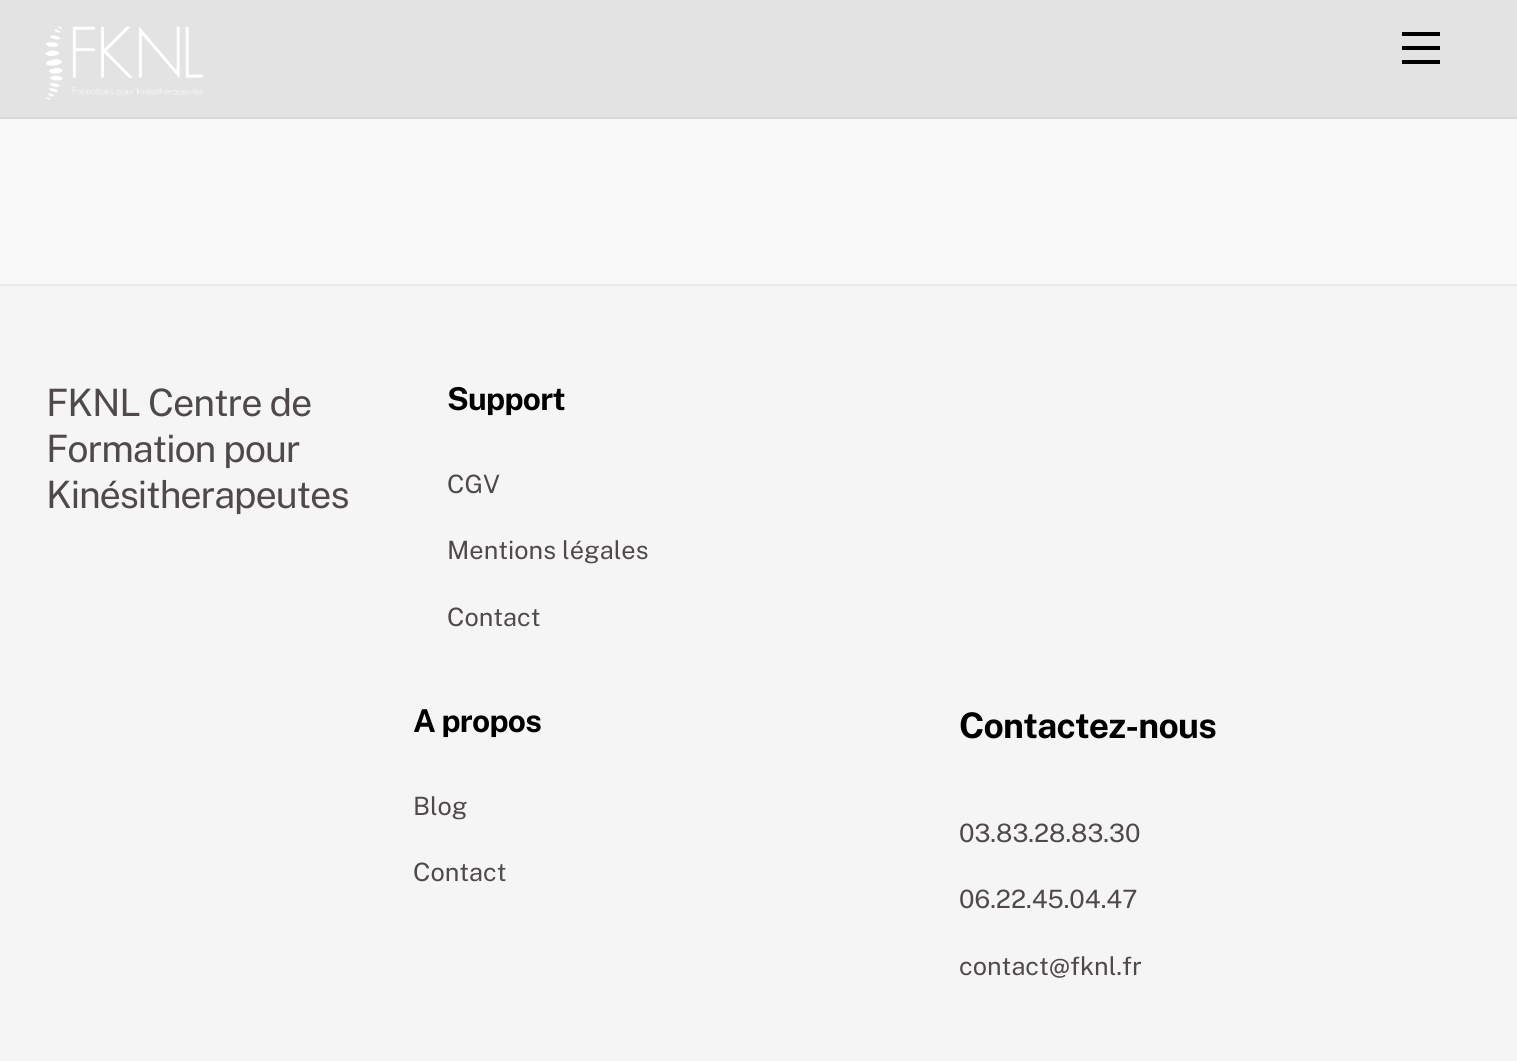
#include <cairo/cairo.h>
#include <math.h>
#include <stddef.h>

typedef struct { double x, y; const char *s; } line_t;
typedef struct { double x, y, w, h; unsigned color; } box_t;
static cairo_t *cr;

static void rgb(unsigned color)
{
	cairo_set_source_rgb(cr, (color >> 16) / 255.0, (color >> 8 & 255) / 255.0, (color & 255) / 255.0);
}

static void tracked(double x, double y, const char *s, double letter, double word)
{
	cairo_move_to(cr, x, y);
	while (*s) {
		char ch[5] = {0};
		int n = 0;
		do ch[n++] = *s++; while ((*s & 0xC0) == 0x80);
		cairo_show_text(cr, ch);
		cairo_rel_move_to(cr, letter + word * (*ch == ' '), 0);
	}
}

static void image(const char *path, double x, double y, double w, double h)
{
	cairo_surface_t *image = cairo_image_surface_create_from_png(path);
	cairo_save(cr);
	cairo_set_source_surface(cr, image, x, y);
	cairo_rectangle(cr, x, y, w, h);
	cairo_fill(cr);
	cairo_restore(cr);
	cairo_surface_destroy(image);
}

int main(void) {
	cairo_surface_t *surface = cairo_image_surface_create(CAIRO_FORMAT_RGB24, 1517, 1061);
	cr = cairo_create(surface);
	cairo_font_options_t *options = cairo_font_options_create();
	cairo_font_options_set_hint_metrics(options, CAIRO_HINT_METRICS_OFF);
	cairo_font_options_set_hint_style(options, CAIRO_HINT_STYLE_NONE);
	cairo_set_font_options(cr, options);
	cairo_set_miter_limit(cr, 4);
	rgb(0xf9f9f9);
	cairo_paint(cr);
	rgb(0xe3e3e3);
	cairo_rectangle(cr, 0, 0, 1517, 117);
	cairo_fill(cr);
	rgb(0xd8d8d8);
	cairo_rectangle(cr, 0, 117, 1517, 2);
	cairo_fill(cr);
	image("img/1.png", 45, 26, 158, 74);
	{
		static const box_t items[] = {
			{1402, 60, 38, 4, 0x000000},
			{1402, 32, 38, 4, 0x000000},
			{1402, 46, 38, 4, 0x000000},
			{0, 286, 1517, 775, 0xf5f5f5},
			{0, 284, 1517, 2, 0xe9e9e9},
		};
		for (size_t i = 0; i < sizeof items / sizeof *items; i++) {
			rgb(items[i].color);
			cairo_rectangle(cr, items[i].x, items[i].y, items[i].w, items[i].h);
			cairo_fill(cr);
		}
	}
	cairo_select_font_face(cr, "Public Sans", CAIRO_FONT_SLANT_NORMAL, CAIRO_FONT_WEIGHT_NORMAL);
	cairo_set_font_size(cr, 37.75);
	rgb(0x4f4949);
	{
		static const line_t items[] = {
			{46, 416, "FKNL Centre de"},
			{46, 462, "Formation pour"},
			{46, 508, "Kinésitherapeutes"},
		};
		for (size_t i = 0; i < sizeof items / sizeof *items; i++) {
			tracked(items[i].x, items[i].y, items[i].s, -1.1, 0);
		}
	}
	cairo_select_font_face(cr, "Public Sans", CAIRO_FONT_SLANT_NORMAL, CAIRO_FONT_WEIGHT_BOLD);
	cairo_set_font_size(cr, 31.5);
	rgb(0x000000);
	tracked(447, 410, "Support", -0.75, 0);
	cairo_select_font_face(cr, "Public Sans", CAIRO_FONT_SLANT_NORMAL, CAIRO_FONT_WEIGHT_NORMAL);
	cairo_set_font_size(cr, 25.25);
	rgb(0x4f4949);
	{
		static const line_t items[] = {
			{447, 493, "CGV"},
			{447, 559, "Mentions légales"},
			{447, 626, "Contact"},
		};
		for (size_t i = 0; i < sizeof items / sizeof *items; i++) {
			cairo_move_to(cr, items[i].x, items[i].y);
			cairo_show_text(cr, items[i].s);
		}
	}
	cairo_select_font_face(cr, "Public Sans", CAIRO_FONT_SLANT_NORMAL, CAIRO_FONT_WEIGHT_BOLD);
	cairo_set_font_size(cr, 31.5);
	rgb(0x000000);
	tracked(413, 732, "A propos", -0.75, 0);
	cairo_select_font_face(cr, "Public Sans", CAIRO_FONT_SLANT_NORMAL, CAIRO_FONT_WEIGHT_NORMAL);
	cairo_set_font_size(cr, 25.25);
	rgb(0x4f4949);
	cairo_move_to(cr, 413, 815);
	cairo_show_text(cr, "Blog");
	cairo_move_to(cr, 413, 881);
	cairo_show_text(cr, "Contact");
	cairo_select_font_face(cr, "Public Sans", CAIRO_FONT_SLANT_NORMAL, CAIRO_FONT_WEIGHT_BOLD);
	cairo_set_font_size(cr, 35.25);
	rgb(0x000000);
	tracked(959, 738, "Contactez-nous", -0.75, 0);
	cairo_select_font_face(cr, "Public Sans", CAIRO_FONT_SLANT_NORMAL, CAIRO_FONT_WEIGHT_NORMAL);
	cairo_set_font_size(cr, 25.25);
	rgb(0x4f4949);
	{
		static const line_t items[] = {
			{959, 842, "03.83.28.83.30"},
			{959, 908, "06.22.45.04.47"},
			{959, 975, "contact@fknl.fr"},
		};
		for (size_t i = 0; i < sizeof items / sizeof *items; i++) {
			cairo_move_to(cr, items[i].x, items[i].y);
			cairo_show_text(cr, items[i].s);
		}
	}
	cairo_surface_write_to_png(surface, "page.png");
	cairo_font_options_destroy(options);
	cairo_destroy(cr);
	cairo_surface_destroy(surface);
	return 0;
}
